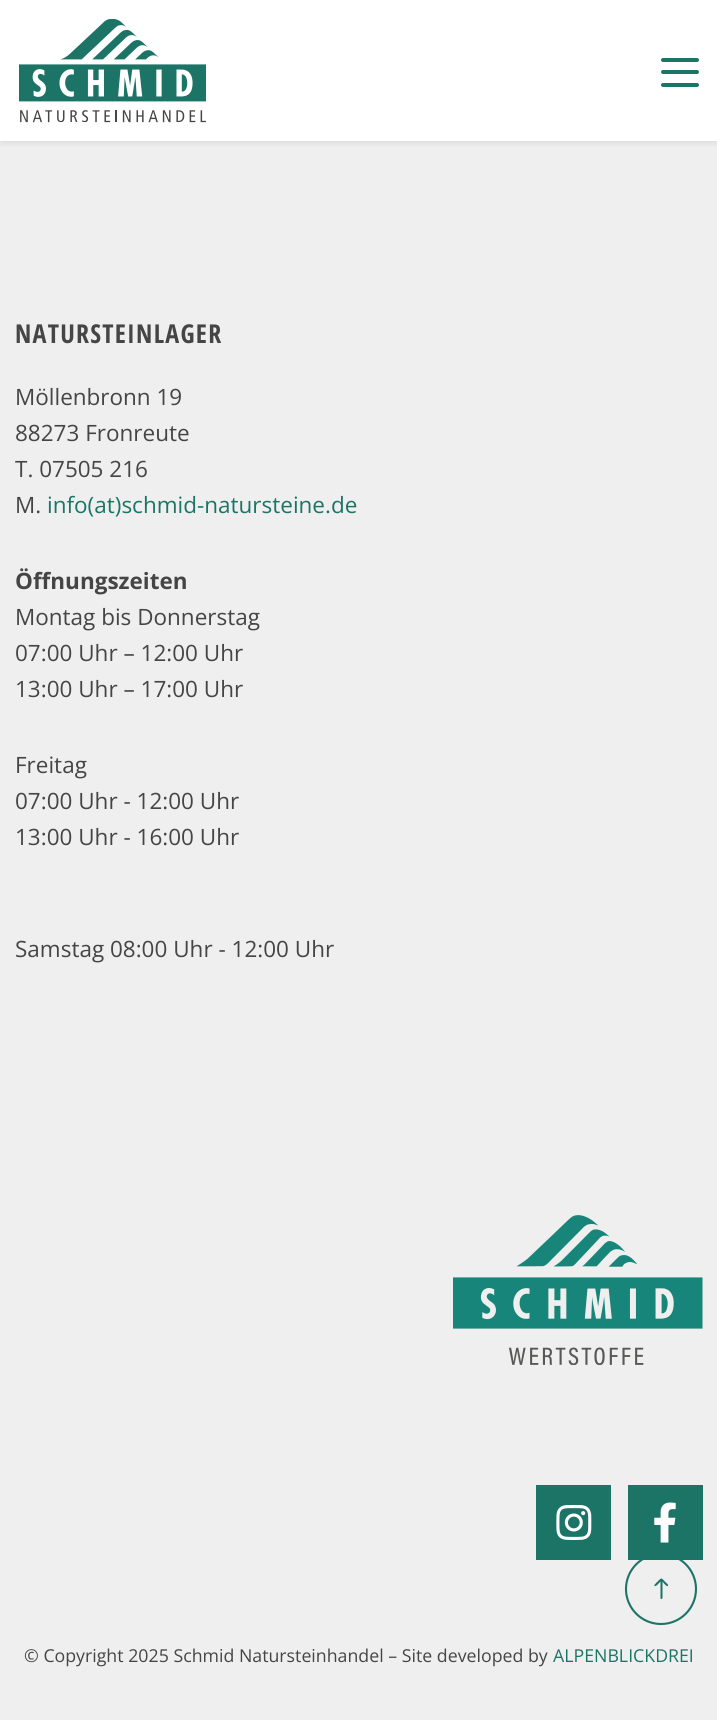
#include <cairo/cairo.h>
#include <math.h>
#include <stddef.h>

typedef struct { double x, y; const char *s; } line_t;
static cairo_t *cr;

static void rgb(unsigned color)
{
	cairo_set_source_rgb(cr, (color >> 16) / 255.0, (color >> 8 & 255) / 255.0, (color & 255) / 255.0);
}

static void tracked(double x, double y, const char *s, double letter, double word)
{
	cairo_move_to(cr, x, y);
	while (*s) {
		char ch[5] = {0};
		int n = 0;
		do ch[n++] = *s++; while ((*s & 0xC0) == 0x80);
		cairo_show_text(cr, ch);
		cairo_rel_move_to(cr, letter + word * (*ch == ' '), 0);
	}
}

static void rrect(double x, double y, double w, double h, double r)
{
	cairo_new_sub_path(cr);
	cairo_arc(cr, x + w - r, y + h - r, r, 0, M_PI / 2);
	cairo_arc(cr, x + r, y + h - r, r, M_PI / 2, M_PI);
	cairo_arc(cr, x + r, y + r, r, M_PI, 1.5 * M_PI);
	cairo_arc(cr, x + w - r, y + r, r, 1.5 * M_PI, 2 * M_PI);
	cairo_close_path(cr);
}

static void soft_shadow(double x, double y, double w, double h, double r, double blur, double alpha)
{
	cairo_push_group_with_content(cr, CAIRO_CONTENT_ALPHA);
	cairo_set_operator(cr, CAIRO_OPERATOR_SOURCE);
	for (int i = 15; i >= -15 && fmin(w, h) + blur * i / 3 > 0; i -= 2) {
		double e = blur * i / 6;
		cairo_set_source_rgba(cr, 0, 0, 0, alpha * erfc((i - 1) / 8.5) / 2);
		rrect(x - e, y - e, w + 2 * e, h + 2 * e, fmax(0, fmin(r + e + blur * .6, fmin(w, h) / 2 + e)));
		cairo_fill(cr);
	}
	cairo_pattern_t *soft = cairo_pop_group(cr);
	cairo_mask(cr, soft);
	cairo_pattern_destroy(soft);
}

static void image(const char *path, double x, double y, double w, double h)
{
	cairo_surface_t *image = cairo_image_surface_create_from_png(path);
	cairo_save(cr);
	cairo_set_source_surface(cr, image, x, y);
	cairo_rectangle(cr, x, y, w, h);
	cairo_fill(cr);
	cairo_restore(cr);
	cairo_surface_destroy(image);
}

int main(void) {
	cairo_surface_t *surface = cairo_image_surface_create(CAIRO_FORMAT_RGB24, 717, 1720);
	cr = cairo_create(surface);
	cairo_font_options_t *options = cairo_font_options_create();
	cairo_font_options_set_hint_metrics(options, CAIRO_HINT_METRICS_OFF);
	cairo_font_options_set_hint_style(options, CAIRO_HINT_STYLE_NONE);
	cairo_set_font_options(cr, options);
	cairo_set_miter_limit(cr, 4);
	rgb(0xefefef);
	cairo_paint(cr);
	rgb(0x000000);
	soft_shadow(0, 3, 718, 141, 0, 2.5, 0.07);
	rgb(0xffffff);
	cairo_rectangle(cr, 0, 0, 717, 141);
	cairo_fill(cr);
	image("img/1.png", 19, 19, 187, 104);
	rgb(0x1c7466);
	rrect(661, 58, 38, 4, 2);
	cairo_fill(cr);
	rrect(661, 70, 38, 4, 2);
	cairo_fill(cr);
	rrect(661, 83, 38, 4, 2);
	cairo_fill(cr);
	image("img/2.png", 453, 1215, 250, 150);
	cairo_rectangle(cr, 536, 1485, 75, 75);
	cairo_fill(cr);
	image("img/3.png", 556, 1505, 36, 35);
	cairo_rectangle(cr, 628, 1485, 75, 75);
	cairo_fill(cr);
	image("img/4.png", 654, 1502, 22, 41);
	cairo_new_path(cr);
	cairo_move_to(cr, 654.5, 1586);
	cairo_curve_to(cr, 656, 1587, 659.5, 1582.5, 660.5, 1581.5);
	cairo_line_to(cr, 660.5, 1598.5);
	cairo_line_to(cr, 661, 1599);
	cairo_curve_to(cr, 663, 1599.5, 662.5, 1596, 662.5, 1595.5);
	cairo_line_to(cr, 662.5, 1581.5);
	cairo_curve_to(cr, 663, 1582.5, 667.5, 1588, 668, 1585.5);
	cairo_curve_to(cr, 668.5, 1585, 667.5, 1584, 667, 1583.5);
	cairo_curve_to(cr, 666, 1583, 662.5, 1578.5, 661.5, 1578.5);
	cairo_curve_to(cr, 660, 1578.5, 657.5, 1582, 656.5, 1582.5);
	cairo_curve_to(cr, 656.5, 1583, 653.5, 1585, 654.5, 1586);
	cairo_close_path(cr);
	cairo_fill(cr);
	cairo_arc(cr, 661, 1589, 35, 0, 2 * M_PI);
	cairo_set_line_width(cr, 2.1);
	cairo_stroke(cr);
	cairo_select_font_face(cr, "Open Sans Condensed", CAIRO_FONT_SLANT_NORMAL, CAIRO_FONT_WEIGHT_BOLD);
	cairo_set_font_size(cr, 26);
	rgb(0x464545);
	tracked(15, 343, "NATURSTEINLAGER", 1.25, 0);
	cairo_select_font_face(cr, "Open Sans", CAIRO_FONT_SLANT_NORMAL, CAIRO_FONT_WEIGHT_NORMAL);
	cairo_set_font_size(cr, 22.5);
	{
		static const line_t items[] = {
			{15, 405, "Möllenbronn 19"},
			{15, 441, "88273 Fronreute"},
			{15, 477, "T. 07505 216"},
			{15, 513, "M."},
		};
		for (size_t i = 0; i < sizeof items / sizeof *items; i++) {
			cairo_move_to(cr, items[i].x, items[i].y);
			cairo_show_text(cr, items[i].s);
		}
	}
	rgb(0x1c7466);
	cairo_move_to(cr, 47, 513);
	cairo_show_text(cr, "info(at)schmid-natursteine.de");
	cairo_select_font_face(cr, "Open Sans", CAIRO_FONT_SLANT_NORMAL, CAIRO_FONT_WEIGHT_BOLD);
	rgb(0x464545);
	cairo_move_to(cr, 15, 589);
	cairo_show_text(cr, "Öffnungszeiten");
	cairo_select_font_face(cr, "Open Sans", CAIRO_FONT_SLANT_NORMAL, CAIRO_FONT_WEIGHT_NORMAL);
	{
		static const line_t items[] = {
			{15, 625, "Montag bis Donnerstag"},
			{15, 661, "07:00 Uhr – 12:00 Uhr"},
			{15, 697, "13:00 Uhr – 17:00 Uhr"},
			{15, 773, "Freitag"},
			{15, 809, "07:00 Uhr - 12:00 Uhr"},
			{15, 845, "13:00 Uhr - 16:00 Uhr"},
			{15, 957, "Samstag 08:00 Uhr - 12:00 Uhr"},
		};
		for (size_t i = 0; i < sizeof items / sizeof *items; i++) {
			cairo_move_to(cr, items[i].x, items[i].y);
			cairo_show_text(cr, items[i].s);
		}
	}
	cairo_set_font_size(cr, 17.75);
	cairo_move_to(cr, 24, 1662);
	cairo_show_text(cr, "© Copyright 2025 Schmid Natursteinhandel – Site developed by");
	rgb(0x1c7466);
	cairo_move_to(cr, 553, 1662);
	cairo_show_text(cr, "ALPENBLICKDREI");
	cairo_surface_write_to_png(surface, "page.png");
	cairo_font_options_destroy(options);
	cairo_destroy(cr);
	cairo_surface_destroy(surface);
	return 0;
}
